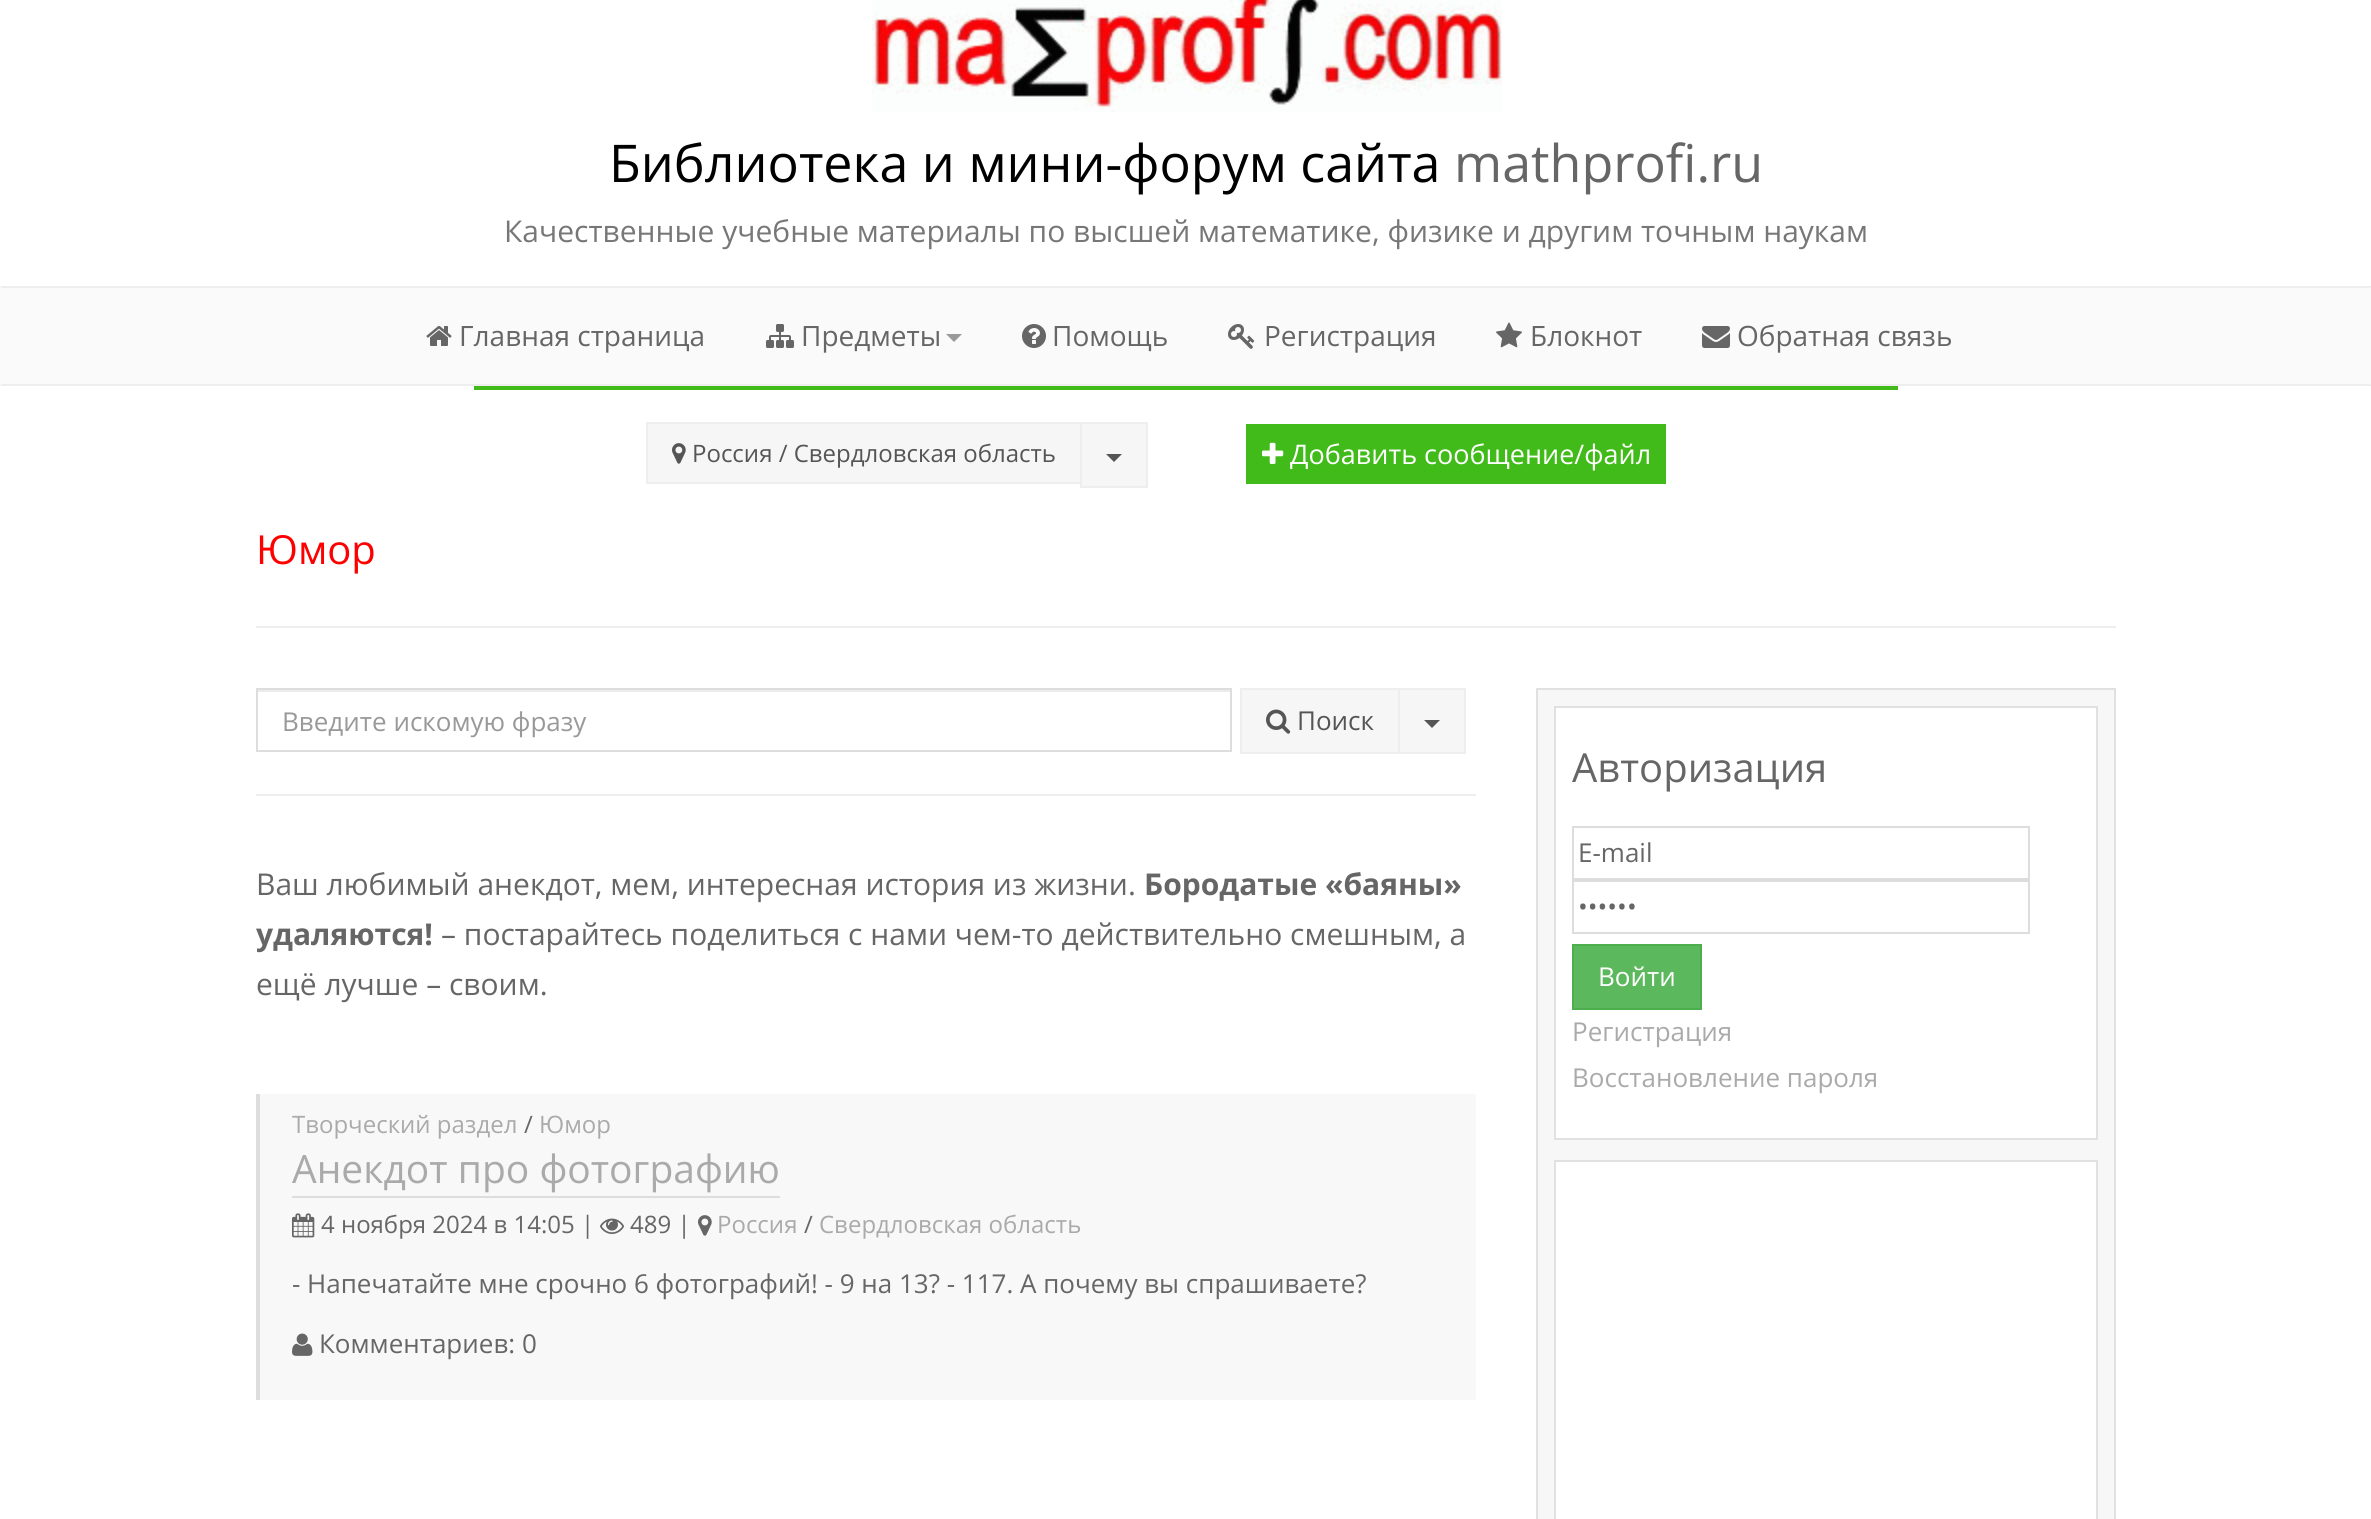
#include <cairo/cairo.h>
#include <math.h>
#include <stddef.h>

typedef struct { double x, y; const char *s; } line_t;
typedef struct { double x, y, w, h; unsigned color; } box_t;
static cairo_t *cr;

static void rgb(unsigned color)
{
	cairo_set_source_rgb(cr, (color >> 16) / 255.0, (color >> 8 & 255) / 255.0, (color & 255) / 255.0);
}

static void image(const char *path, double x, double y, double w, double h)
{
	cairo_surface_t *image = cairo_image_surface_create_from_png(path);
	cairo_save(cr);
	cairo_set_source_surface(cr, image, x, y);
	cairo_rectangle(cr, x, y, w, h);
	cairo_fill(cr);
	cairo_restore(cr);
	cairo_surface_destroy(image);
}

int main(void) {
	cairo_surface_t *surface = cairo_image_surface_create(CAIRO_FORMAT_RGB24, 2371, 1519);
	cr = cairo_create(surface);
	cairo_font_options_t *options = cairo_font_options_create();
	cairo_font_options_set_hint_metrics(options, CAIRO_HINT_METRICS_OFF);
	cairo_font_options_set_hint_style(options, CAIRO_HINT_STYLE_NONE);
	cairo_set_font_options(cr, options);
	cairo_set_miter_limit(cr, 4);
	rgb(0xffffff);
	cairo_paint(cr);
	image("img/1.png", 872, 0, 630, 112);
	rgb(0xfafafa);
	cairo_rectangle(cr, 0, 286, 2371, 100);
	cairo_fill(cr);
	rgb(0xeeeeee);
	cairo_new_path(cr);
	cairo_move_to(cr, 0, 286);
	cairo_line_to(cr, 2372, 286);
	cairo_line_to(cr, 2370, 288);
	cairo_line_to(cr, 2, 288);
	cairo_close_path(cr);
	cairo_fill(cr);
	cairo_new_path(cr);
	cairo_move_to(cr, 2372, 386);
	cairo_line_to(cr, 0, 386);
	cairo_line_to(cr, 2, 384);
	cairo_line_to(cr, 2370, 384);
	cairo_close_path(cr);
	cairo_fill(cr);
	image("img/2.png", 426, 326, 26, 20);
	image("img/3.png", 766, 324, 28, 24);
	rgb(0x999999);
	cairo_new_path(cr);
	cairo_move_to(cr, 946, 334);
	cairo_line_to(cr, 962, 334);
	cairo_line_to(cr, 954, 342);
	cairo_close_path(cr);
	cairo_fill(cr);
	image("img/4.png", 1022, 324, 24, 24);
	image("img/5.png", 1228, 324, 27, 25);
	image("img/6.png", 1496, 322, 26, 26);
	image("img/7.png", 1702, 326, 28, 22);
	rgb(0x41bb19);
	cairo_rectangle(cr, 474, 386, 1424, 4);
	cairo_fill(cr);
	rgb(0xf6f6f6);
	cairo_rectangle(cr, 647, 423, 434, 60);
	cairo_fill_preserve(cr);
	rgb(0xeeeeee);
	cairo_stroke(cr);
	image("img/8.png", 672, 443, 14, 21);
	rgb(0xf6f6f6);
	cairo_rectangle(cr, 1081, 423, 66, 64);
	cairo_fill_preserve(cr);
	rgb(0xeeeeee);
	cairo_stroke(cr);
	rgb(0x555555);
	cairo_new_path(cr);
	cairo_move_to(cr, 1106, 454);
	cairo_line_to(cr, 1122, 454);
	cairo_line_to(cr, 1114, 462);
	cairo_close_path(cr);
	cairo_fill(cr);
	rgb(0x41bb19);
	cairo_rectangle(cr, 1246, 424, 420, 60);
	cairo_fill(cr);
	image("img/9.png", 1262, 442, 22, 22);
	rgb(0xeeeeee);
	cairo_rectangle(cr, 256, 626, 1860, 2);
	cairo_fill(cr);
	rgb(0xececec);
	cairo_rectangle(cr, 258, 690, 972, 2);
	cairo_fill(cr);
	cairo_rectangle(cr, 257, 689, 974, 62);
	rgb(0xdddddd);
	cairo_stroke(cr);
	rgb(0xf6f6f6);
	cairo_rectangle(cr, 1241, 689, 158, 64);
	cairo_fill_preserve(cr);
	rgb(0xeeeeee);
	cairo_stroke(cr);
	image("img/10.png", 1266, 709, 25, 25);
	rgb(0xf6f6f6);
	cairo_rectangle(cr, 1399, 689, 66, 64);
	cairo_fill_preserve(cr);
	rgb(0xeeeeee);
	cairo_stroke(cr);
	rgb(0x555555);
	cairo_new_path(cr);
	cairo_move_to(cr, 1424, 720);
	cairo_line_to(cr, 1440, 720);
	cairo_line_to(cr, 1432, 728);
	cairo_close_path(cr);
	cairo_fill(cr);
	{
		static const box_t items[] = {
			{256, 794, 1220, 2, 0xeeeeee},
			{260, 1094, 1216, 306, 0xf8f8f8},
			{256, 1094, 4, 306, 0xdddddd},
			{292, 1196, 488, 2, 0xdddddd},
		};
		for (size_t i = 0; i < sizeof items / sizeof *items; i++) {
			rgb(items[i].color);
			cairo_rectangle(cr, items[i].x, items[i].y, items[i].w, items[i].h);
			cairo_fill(cr);
		}
	}
	image("img/11.png", 292, 1213, 23, 25);
	image("img/12.png", 600, 1218, 24, 16);
	image("img/13.png", 698, 1215, 14, 21);
	image("img/14.png", 292, 1333, 21, 23);
	rgb(0xf7f7f7);
	cairo_rectangle(cr, 1537, 689, 578, 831);
	cairo_fill_preserve(cr);
	rgb(0xe1e1e1);
	cairo_stroke(cr);
	rgb(0xffffff);
	cairo_rectangle(cr, 1555, 707, 542, 432);
	cairo_fill_preserve(cr);
	rgb(0xe1e1e1);
	cairo_stroke(cr);
	cairo_rectangle(cr, 1573, 827, 456, 52);
	rgb(0xdddddd);
	cairo_stroke(cr);
	cairo_rectangle(cr, 1573, 881, 456, 52);
	cairo_stroke(cr);
	rgb(0x5cb85c);
	cairo_rectangle(cr, 1573, 945, 128, 64);
	cairo_fill_preserve(cr);
	rgb(0x4cae4c);
	cairo_stroke(cr);
	rgb(0xffffff);
	cairo_rectangle(cr, 1555, 1161, 542, 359);
	cairo_fill_preserve(cr);
	rgb(0xe1e1e1);
	cairo_stroke(cr);
	cairo_select_font_face(cr, "Open Sans", CAIRO_FONT_SLANT_NORMAL, CAIRO_FONT_WEIGHT_NORMAL);
	cairo_set_font_size(cr, 52);
	rgb(0x000000);
	cairo_move_to(cr, 609, 182);
	cairo_show_text(cr, "Библиотека и мини-форум сайта");
	rgb(0x666666);
	cairo_move_to(cr, 1454, 182);
	cairo_show_text(cr, "mathprofi.ru");
	cairo_set_font_size(cr, 30);
	rgb(0x777777);
	cairo_move_to(cr, 504, 242);
	cairo_show_text(cr, "Качественные учебные материалы по высшей математике, физике и другим точным наукам");
	cairo_set_font_size(cr, 28);
	rgb(0x666666);
	{
		static const line_t items[] = {
			{459, 346, "Главная страница"},
			{801, 346, "Предметы"},
			{1052, 346, "Помощь"},
			{1264, 346, "Регистрация"},
			{1530, 346, "Блокнот"},
			{1737, 346, "Обратная связь"},
		};
		for (size_t i = 0; i < sizeof items / sizeof *items; i++) {
			cairo_move_to(cr, items[i].x, items[i].y);
			cairo_show_text(cr, items[i].s);
		}
	}
	cairo_set_font_size(cr, 24);
	rgb(0x555555);
	cairo_move_to(cr, 692, 462);
	cairo_show_text(cr, "Россия / Свердловская область");
	cairo_set_font_size(cr, 27);
	rgb(0xffffff);
	cairo_move_to(cr, 1290, 464);
	cairo_show_text(cr, "Добавить сообщение/файл");
	cairo_set_font_size(cr, 40);
	rgb(0xff0000);
	cairo_move_to(cr, 256, 564);
	cairo_show_text(cr, "Юмор");
	cairo_set_font_size(cr, 26);
	rgb(0x999999);
	cairo_move_to(cr, 282, 731);
	cairo_show_text(cr, "Введите искомую фразу");
	rgb(0x555555);
	cairo_move_to(cr, 1297, 730);
	cairo_show_text(cr, "Поиск");
	cairo_set_font_size(cr, 30);
	rgb(0x666666);
	cairo_move_to(cr, 256, 895);
	cairo_show_text(cr, "Ваш любимый анекдот, мем, интересная история из жизни.");
	cairo_select_font_face(cr, "Open Sans", CAIRO_FONT_SLANT_NORMAL, CAIRO_FONT_WEIGHT_BOLD);
	cairo_move_to(cr, 1144, 895);
	cairo_show_text(cr, "Бородатые «баяны»");
	cairo_move_to(cr, 256, 945);
	cairo_show_text(cr, "удаляются!");
	cairo_select_font_face(cr, "Open Sans", CAIRO_FONT_SLANT_NORMAL, CAIRO_FONT_WEIGHT_NORMAL);
	cairo_move_to(cr, 441, 945);
	cairo_show_text(cr, "– постарайтесь поделиться с нами чем-то действительно смешным, а");
	cairo_move_to(cr, 256, 995);
	cairo_show_text(cr, "ещё лучше – своим.");
	cairo_set_font_size(cr, 24);
	rgb(0xaaaaaa);
	cairo_move_to(cr, 292, 1133);
	cairo_show_text(cr, "Творческий раздел");
	rgb(0x666666);
	cairo_move_to(cr, 524, 1133);
	cairo_show_text(cr, "/");
	rgb(0xaaaaaa);
	cairo_move_to(cr, 539, 1133);
	cairo_show_text(cr, "Юмор");
	cairo_set_font_size(cr, 39);
	cairo_move_to(cr, 292, 1183);
	cairo_show_text(cr, "Анекдот про фотографию");
	cairo_set_font_size(cr, 24);
	rgb(0x666666);
	cairo_move_to(cr, 321, 1233);
	cairo_show_text(cr, "4 ноября 2024 в 14:05 |");
	cairo_move_to(cr, 630, 1233);
	cairo_show_text(cr, "489 |");
	rgb(0xaaaaaa);
	cairo_move_to(cr, 717, 1233);
	cairo_show_text(cr, "Россия");
	rgb(0x666666);
	cairo_move_to(cr, 804, 1233);
	cairo_show_text(cr, "/");
	rgb(0xaaaaaa);
	cairo_move_to(cr, 819, 1233);
	cairo_show_text(cr, "Свердловская область");
	cairo_set_font_size(cr, 26);
	rgb(0x666666);
	cairo_move_to(cr, 292, 1293);
	cairo_show_text(cr, "- Напечатайте мне срочно 6 фотографий! - 9 на 13? - 117. А почему вы спрашиваете?");
	cairo_move_to(cr, 319, 1353);
	cairo_show_text(cr, "Комментариев: 0");
	cairo_set_font_size(cr, 40);
	cairo_move_to(cr, 1572, 782);
	cairo_show_text(cr, "Авторизация");
	cairo_set_font_size(cr, 26);
	cairo_move_to(cr, 1578, 862);
	cairo_show_text(cr, "E-mail");
	cairo_move_to(cr, 1578, 916);
	cairo_show_text(cr, "••••••");
	rgb(0xffffff);
	cairo_move_to(cr, 1598, 986);
	cairo_show_text(cr, "Войти");
	rgb(0xaaaaaa);
	cairo_move_to(cr, 1572, 1041);
	cairo_show_text(cr, "Регистрация");
	cairo_move_to(cr, 1572, 1087);
	cairo_show_text(cr, "Восстановление пароля");
	cairo_surface_write_to_png(surface, "page.png");
	cairo_font_options_destroy(options);
	cairo_destroy(cr);
	cairo_surface_destroy(surface);
	return 0;
}
